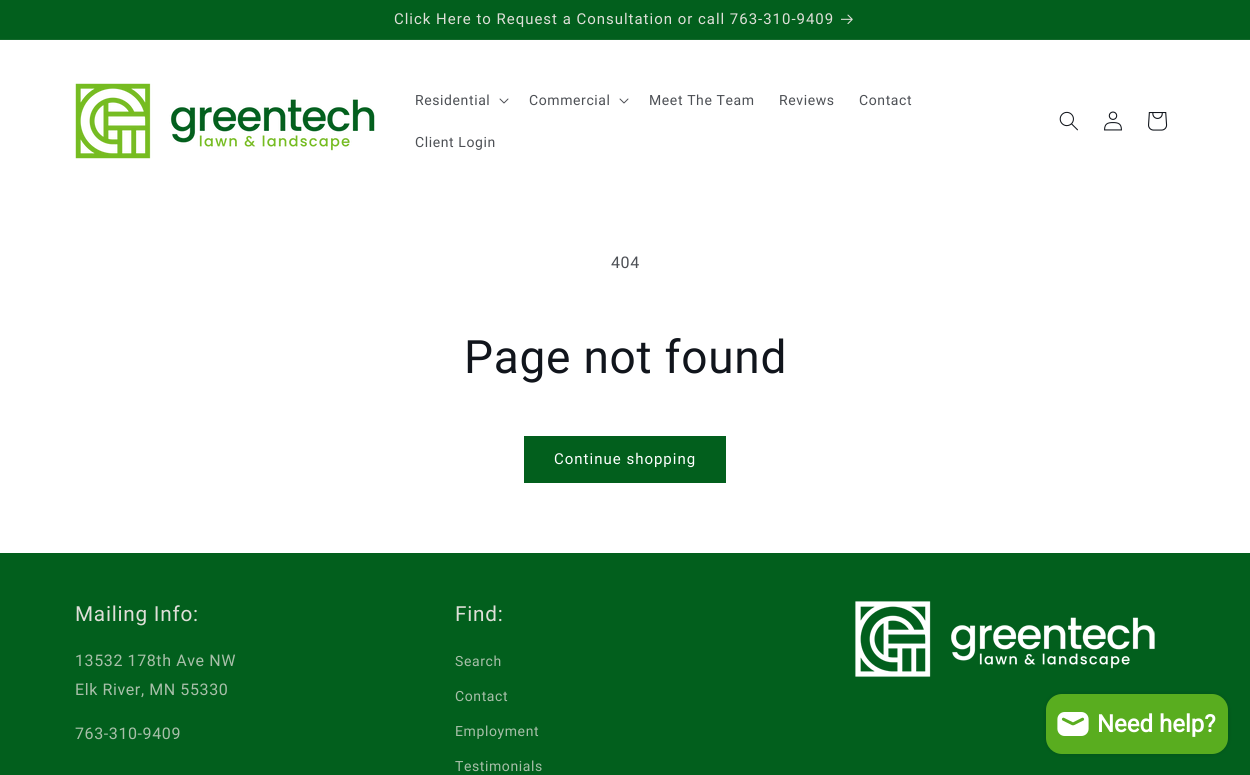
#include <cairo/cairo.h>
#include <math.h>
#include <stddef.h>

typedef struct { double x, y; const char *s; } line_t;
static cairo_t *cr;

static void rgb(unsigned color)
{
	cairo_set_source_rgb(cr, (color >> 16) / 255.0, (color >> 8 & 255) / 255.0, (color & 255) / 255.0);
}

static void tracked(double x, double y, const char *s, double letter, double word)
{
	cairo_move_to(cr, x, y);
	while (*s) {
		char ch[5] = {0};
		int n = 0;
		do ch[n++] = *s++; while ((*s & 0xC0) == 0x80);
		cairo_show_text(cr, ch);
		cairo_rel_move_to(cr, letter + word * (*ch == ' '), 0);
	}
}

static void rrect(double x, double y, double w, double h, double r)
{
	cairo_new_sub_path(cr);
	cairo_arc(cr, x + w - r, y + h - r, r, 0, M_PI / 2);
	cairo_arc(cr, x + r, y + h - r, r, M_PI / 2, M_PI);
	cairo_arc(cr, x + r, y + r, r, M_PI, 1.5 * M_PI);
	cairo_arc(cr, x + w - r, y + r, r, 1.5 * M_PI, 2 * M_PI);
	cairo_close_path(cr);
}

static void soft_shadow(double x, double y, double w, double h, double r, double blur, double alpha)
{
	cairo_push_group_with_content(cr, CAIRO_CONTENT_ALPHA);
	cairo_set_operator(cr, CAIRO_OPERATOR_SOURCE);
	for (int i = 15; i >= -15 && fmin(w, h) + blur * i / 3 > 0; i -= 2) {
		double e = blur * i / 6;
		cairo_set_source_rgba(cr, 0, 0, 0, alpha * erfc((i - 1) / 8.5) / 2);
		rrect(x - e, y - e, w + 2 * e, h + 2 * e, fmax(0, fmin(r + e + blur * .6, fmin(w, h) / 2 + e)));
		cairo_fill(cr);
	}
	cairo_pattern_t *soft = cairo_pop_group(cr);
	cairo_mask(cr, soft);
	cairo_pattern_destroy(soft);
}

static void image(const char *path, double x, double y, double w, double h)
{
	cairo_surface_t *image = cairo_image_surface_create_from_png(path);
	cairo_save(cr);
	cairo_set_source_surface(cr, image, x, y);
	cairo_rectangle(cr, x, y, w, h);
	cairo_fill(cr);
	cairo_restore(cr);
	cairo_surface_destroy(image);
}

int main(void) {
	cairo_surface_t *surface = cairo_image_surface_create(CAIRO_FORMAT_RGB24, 1250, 775);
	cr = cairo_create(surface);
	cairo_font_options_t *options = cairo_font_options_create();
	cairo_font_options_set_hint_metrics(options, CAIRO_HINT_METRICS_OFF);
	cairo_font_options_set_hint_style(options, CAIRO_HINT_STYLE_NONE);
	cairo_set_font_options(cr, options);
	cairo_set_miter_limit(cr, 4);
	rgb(0xffffff);
	cairo_paint(cr);
	rgb(0x025f1d);
	cairo_rectangle(cr, 0, 0, 1250, 39);
	cairo_fill(cr);
	rgb(0x14692c);
	cairo_rectangle(cr, 0, 39, 1250, 1);
	cairo_fill(cr);
	image("img/1.png", 841, 14, 12, 10);
	image("img/2.png", 75, 83, 300, 76);
	image("img/3.png", 499, 98, 10, 6);
	image("img/3.png", 619, 98, 10, 6);
	image("img/4.png", 1059, 111, 19, 20);
	image("img/5.png", 1104, 111, 18, 20);
	image("img/6.png", 1148, 112, 20, 19);
	rgb(0x025f1d);
	cairo_rectangle(cr, 524, 436, 202, 47);
	cairo_fill(cr);
	cairo_rectangle(cr, 0, 553, 1250, 222);
	cairo_fill(cr);
	image("img/7.png", 855, 601, 300, 76);
	rgb(0x000000);
	soft_shadow(1046, 694, 182, 60, 16, 2.5, 0.15);
	rgb(0x59ad1f);
	rrect(1046, 694, 182, 60, 16);
	cairo_fill(cr);
	image("img/8.png", 1057, 712, 32, 24);
	cairo_select_font_face(cr, "Roboto", CAIRO_FONT_SLANT_NORMAL, CAIRO_FONT_WEIGHT_NORMAL);
	cairo_set_font_size(cr, 14.95);
	rgb(0xdfdfd8);
	tracked(394, 24, "Click Here to Request a Consultation or call 763-310-9409", 1, 0);
	cairo_set_font_size(cr, 14);
	rgb(0x4d5055);
	{
		static const line_t items[] = {
			{415, 105, "Residential"},
			{529, 105, "Commercial"},
			{649, 105, "Meet The Team"},
			{779, 105, "Reviews"},
			{859, 105, "Contact"},
			{415, 147, "Client Login"},
		};
		for (size_t i = 0; i < sizeof items / sizeof *items; i++) {
			tracked(items[i].x, items[i].y, items[i].s, 0.6, 0);
		}
	}
	cairo_set_font_size(cr, 16);
	tracked(611, 268, "404", 0.6, 0);
	cairo_set_font_size(cr, 46);
	rgb(0x11151c);
	tracked(464, 373, "Page not found", 0.75, 0);
	cairo_set_font_size(cr, 15);
	rgb(0xffffff);
	tracked(554, 464, "Continue shopping", 1, 0);
	cairo_set_font_size(cr, 20.75);
	rgb(0xdfdfd8);
	tracked(75, 621, "Mailing Info:", 0.75, 0);
	cairo_set_font_size(cr, 16);
	rgb(0xa8bfa9);
	{
		static const line_t items[] = {
			{75, 666, "13532 178th Ave NW"},
			{75, 695, "Elk River, MN 55330"},
			{75, 739, "763-310-9409"},
		};
		for (size_t i = 0; i < sizeof items / sizeof *items; i++) {
			tracked(items[i].x, items[i].y, items[i].s, 0.6, 0);
		}
	}
	cairo_set_font_size(cr, 20.75);
	rgb(0xdfdfd8);
	tracked(455, 621, "Find:", 0.75, 0);
	cairo_set_font_size(cr, 14);
	rgb(0xa8bfa9);
	{
		static const line_t items[] = {
			{455, 666, "Search"},
			{455, 701, "Contact"},
			{455, 736, "Employment"},
			{455, 771, "Testimonials"},
		};
		for (size_t i = 0; i < sizeof items / sizeof *items; i++) {
			tracked(items[i].x, items[i].y, items[i].s, 0.6, 0);
		}
	}
	cairo_select_font_face(cr, "Roboto", CAIRO_FONT_SLANT_NORMAL, CAIRO_FONT_WEIGHT_BOLD);
	cairo_set_font_size(cr, 24);
	rgb(0xffffff);
	cairo_move_to(cr, 1097, 732);
	cairo_show_text(cr, "Need help?");
	cairo_surface_write_to_png(surface, "page.png");
	cairo_font_options_destroy(options);
	cairo_destroy(cr);
	cairo_surface_destroy(surface);
	return 0;
}
